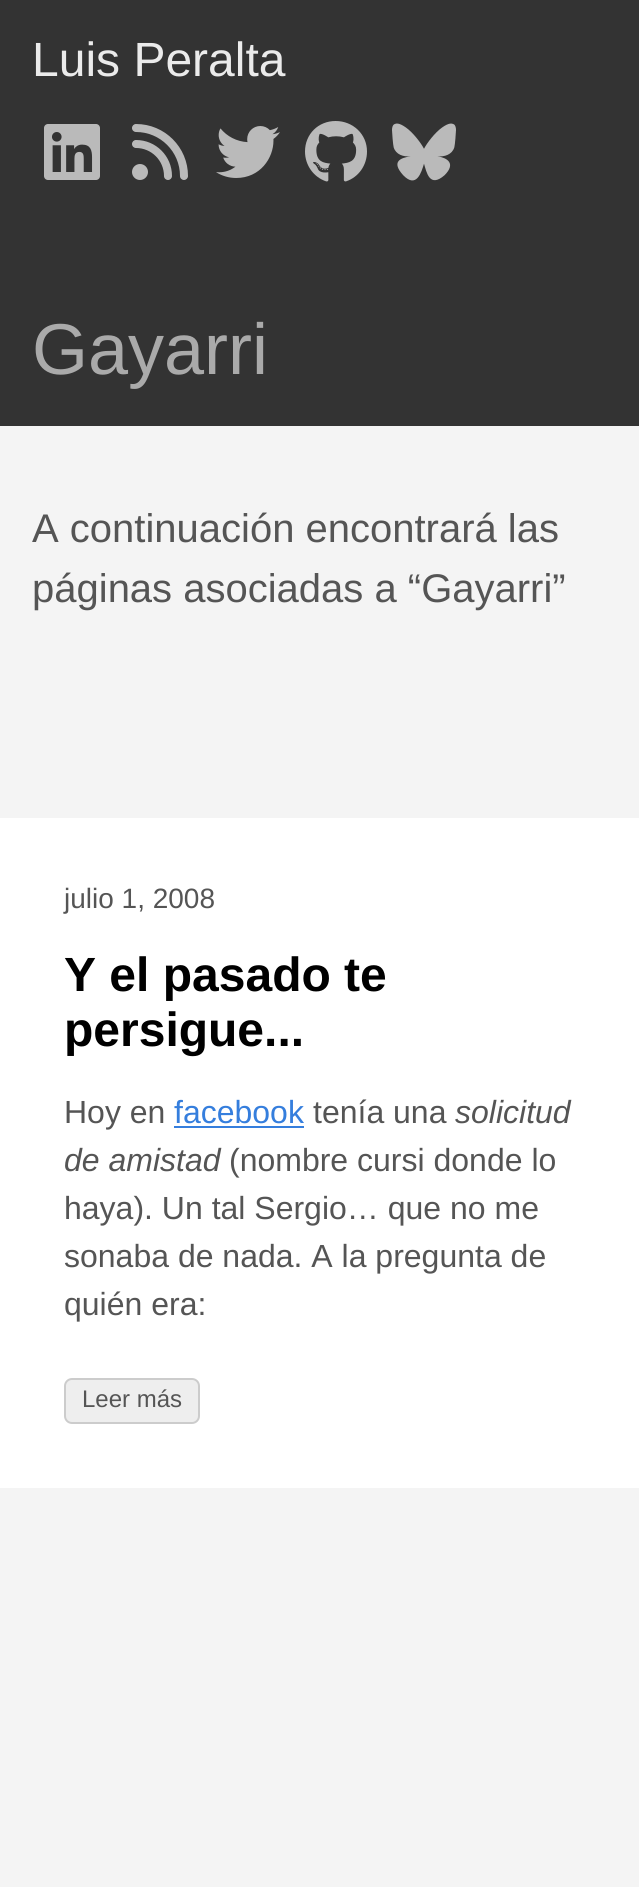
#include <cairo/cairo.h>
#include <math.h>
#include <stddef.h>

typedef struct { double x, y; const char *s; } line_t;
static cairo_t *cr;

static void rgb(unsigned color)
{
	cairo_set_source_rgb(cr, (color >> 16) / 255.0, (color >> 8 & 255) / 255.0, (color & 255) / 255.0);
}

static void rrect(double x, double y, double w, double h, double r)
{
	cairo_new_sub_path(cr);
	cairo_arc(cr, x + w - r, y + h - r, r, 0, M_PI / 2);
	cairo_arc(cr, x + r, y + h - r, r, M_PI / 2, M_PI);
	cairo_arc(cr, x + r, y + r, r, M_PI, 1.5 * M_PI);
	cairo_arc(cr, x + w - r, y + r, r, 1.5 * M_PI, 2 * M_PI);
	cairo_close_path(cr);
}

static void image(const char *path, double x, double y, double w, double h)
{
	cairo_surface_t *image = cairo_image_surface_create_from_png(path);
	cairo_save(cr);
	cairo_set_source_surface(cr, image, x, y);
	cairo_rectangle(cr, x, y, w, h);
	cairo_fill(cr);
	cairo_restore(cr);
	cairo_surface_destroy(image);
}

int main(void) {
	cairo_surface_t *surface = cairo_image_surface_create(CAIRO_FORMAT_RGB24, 639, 1887);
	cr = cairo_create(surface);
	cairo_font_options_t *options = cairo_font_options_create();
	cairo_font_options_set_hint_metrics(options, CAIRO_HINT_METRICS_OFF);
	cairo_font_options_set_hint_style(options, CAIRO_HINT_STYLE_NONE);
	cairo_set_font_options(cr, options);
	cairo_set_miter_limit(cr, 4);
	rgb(0xf4f4f4);
	cairo_paint(cr);
	rgb(0x333333);
	cairo_rectangle(cr, 0, 0, 639, 426);
	cairo_fill(cr);
	image("img/1.png", 44, 124, 56, 56);
	image("img/2.png", 132, 124, 56, 56);
	image("img/3.png", 216, 126, 64, 52);
	image("img/4.png", 305, 121, 62, 61);
	image("img/5.png", 392, 123, 64, 58);
	rgb(0xffffff);
	cairo_rectangle(cr, 0, 818, 639, 670);
	cairo_fill(cr);
	rgb(0x357edd);
	cairo_rectangle(cr, 174, 1126, 130, 2);
	cairo_fill(cr);
	rgb(0xeeeeee);
	rrect(65, 1379, 134, 44, 7);
	cairo_fill_preserve(cr);
	rgb(0xcccccc);
	cairo_stroke(cr);
	cairo_select_font_face(cr, "Liberation Sans", CAIRO_FONT_SLANT_NORMAL, CAIRO_FONT_WEIGHT_NORMAL);
	cairo_set_font_size(cr, 48);
	rgb(0xebebeb);
	cairo_move_to(cr, 32, 76);
	cairo_show_text(cr, "Luis Peralta");
	cairo_set_font_size(cr, 72);
	rgb(0xaaaaaa);
	cairo_move_to(cr, 32, 374);
	cairo_show_text(cr, "Gayarri");
	cairo_set_font_size(cr, 40);
	rgb(0x555555);
	cairo_move_to(cr, 32, 542);
	cairo_show_text(cr, "A continuación encontrará las");
	cairo_move_to(cr, 32, 602);
	cairo_show_text(cr, "páginas asociadas a “Gayarri”");
	cairo_set_font_size(cr, 28);
	cairo_move_to(cr, 64, 908);
	cairo_show_text(cr, "julio 1, 2008");
	cairo_select_font_face(cr, "Liberation Sans", CAIRO_FONT_SLANT_NORMAL, CAIRO_FONT_WEIGHT_BOLD);
	cairo_set_font_size(cr, 48);
	rgb(0x000000);
	cairo_move_to(cr, 64, 991);
	cairo_show_text(cr, "Y el pasado te");
	cairo_move_to(cr, 64, 1046);
	cairo_show_text(cr, "persigue...");
	cairo_select_font_face(cr, "Liberation Sans", CAIRO_FONT_SLANT_NORMAL, CAIRO_FONT_WEIGHT_NORMAL);
	cairo_set_font_size(cr, 32);
	rgb(0x555555);
	cairo_move_to(cr, 64, 1123);
	cairo_show_text(cr, "Hoy en");
	rgb(0x357edd);
	cairo_move_to(cr, 174, 1123);
	cairo_show_text(cr, "facebook");
	rgb(0x555555);
	cairo_move_to(cr, 313, 1123);
	cairo_show_text(cr, "tenía una");
	cairo_select_font_face(cr, "Liberation Sans", CAIRO_FONT_SLANT_ITALIC, CAIRO_FONT_WEIGHT_NORMAL);
	cairo_move_to(cr, 455, 1123);
	cairo_show_text(cr, "solicitud");
	cairo_move_to(cr, 64, 1171);
	cairo_show_text(cr, "de amistad");
	cairo_select_font_face(cr, "Liberation Sans", CAIRO_FONT_SLANT_NORMAL, CAIRO_FONT_WEIGHT_NORMAL);
	{
		static const line_t items[] = {
			{229, 1171, "(nombre cursi donde lo"},
			{64, 1219, "haya). Un tal Sergio… que no me"},
			{64, 1267, "sonaba de nada. A la pregunta de"},
			{64, 1315, "quién era:"},
		};
		for (size_t i = 0; i < sizeof items / sizeof *items; i++) {
			cairo_move_to(cr, items[i].x, items[i].y);
			cairo_show_text(cr, items[i].s);
		}
	}
	cairo_set_font_size(cr, 24);
	cairo_move_to(cr, 82, 1407);
	cairo_show_text(cr, "Leer más");
	cairo_surface_write_to_png(surface, "page.png");
	cairo_font_options_destroy(options);
	cairo_destroy(cr);
	cairo_surface_destroy(surface);
	return 0;
}
